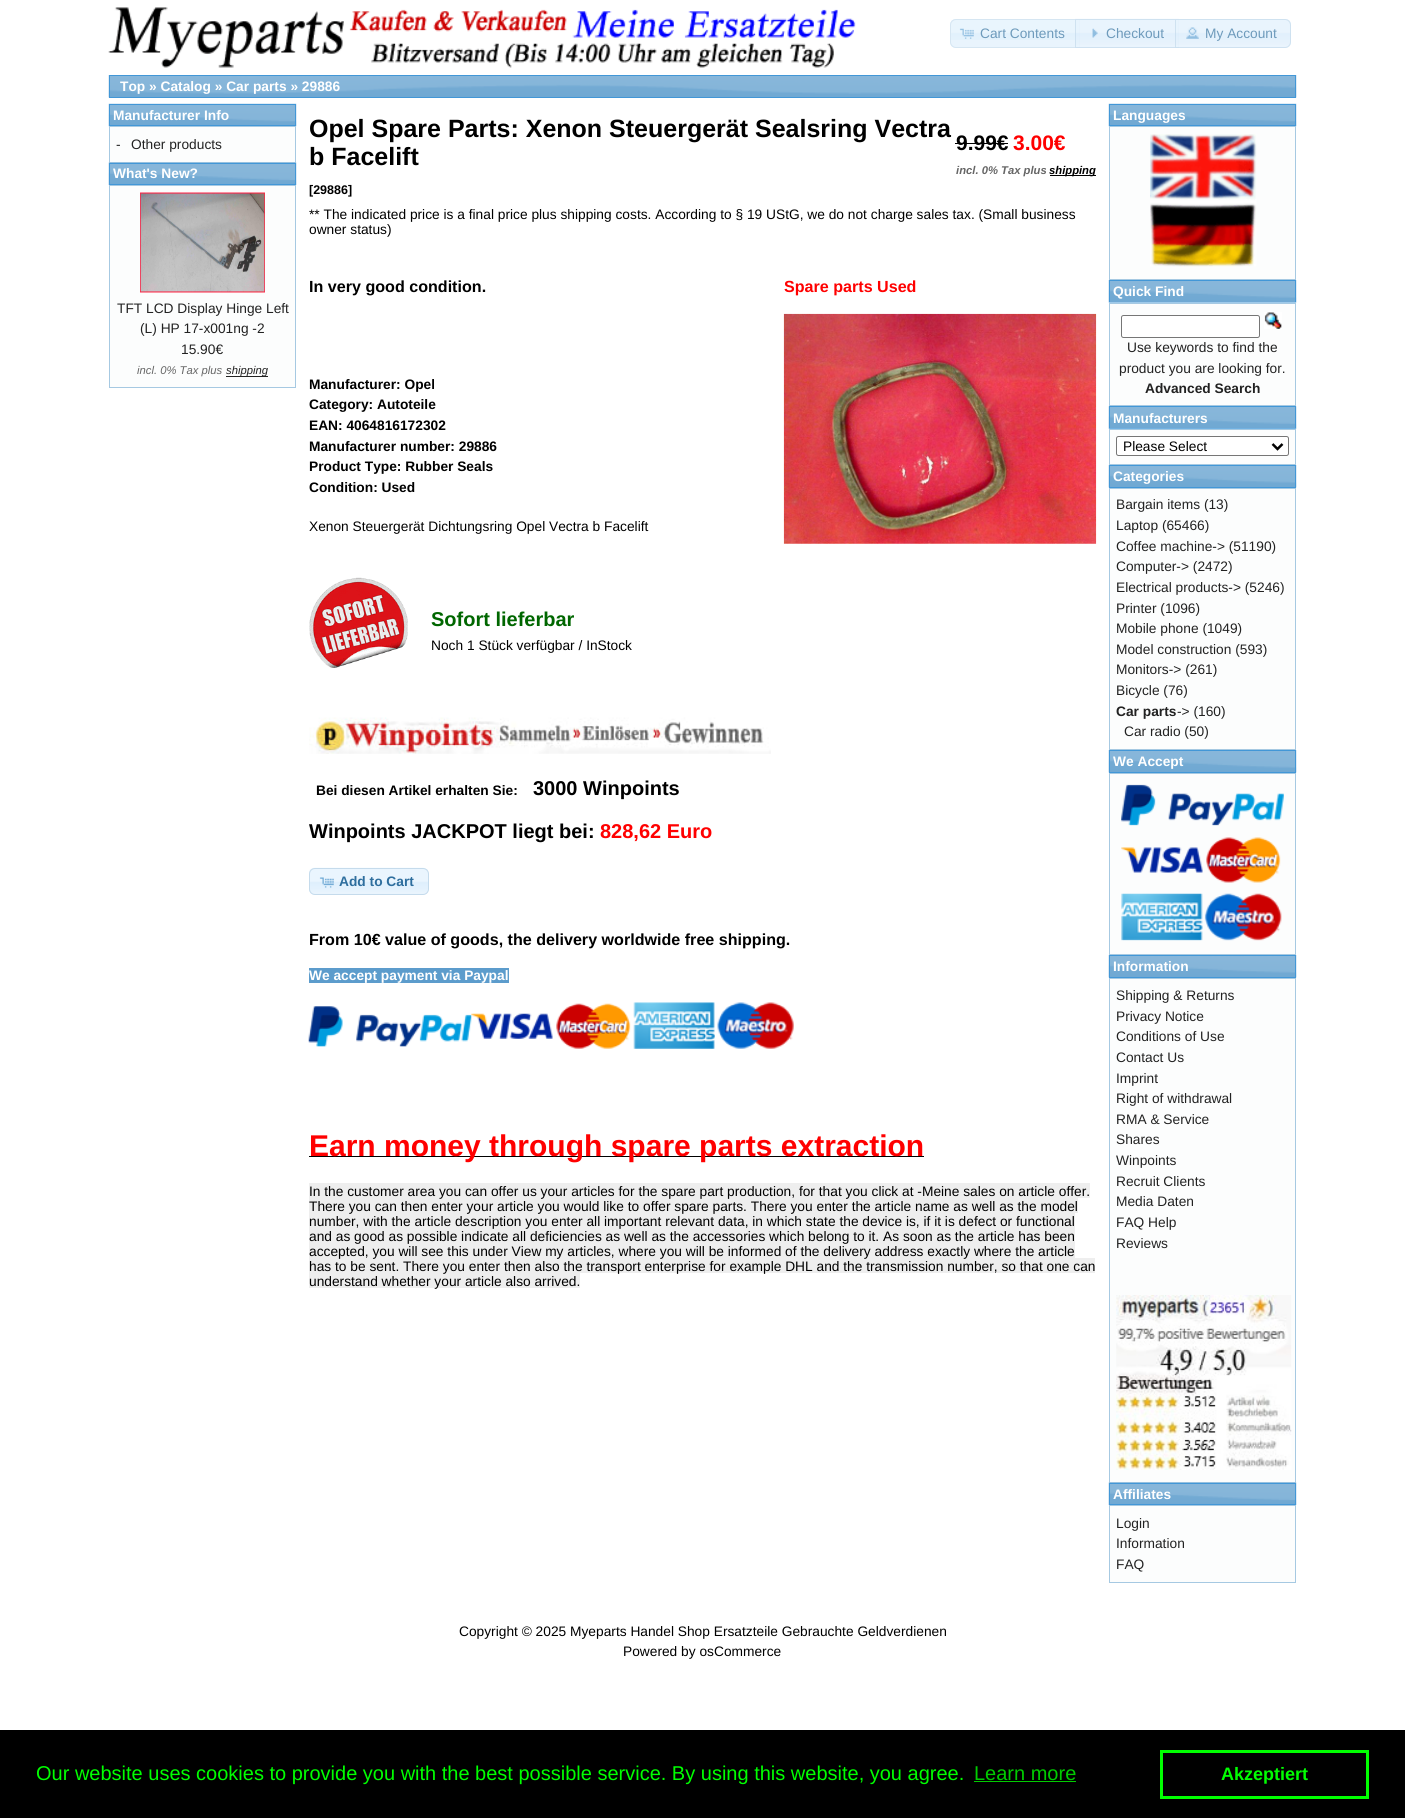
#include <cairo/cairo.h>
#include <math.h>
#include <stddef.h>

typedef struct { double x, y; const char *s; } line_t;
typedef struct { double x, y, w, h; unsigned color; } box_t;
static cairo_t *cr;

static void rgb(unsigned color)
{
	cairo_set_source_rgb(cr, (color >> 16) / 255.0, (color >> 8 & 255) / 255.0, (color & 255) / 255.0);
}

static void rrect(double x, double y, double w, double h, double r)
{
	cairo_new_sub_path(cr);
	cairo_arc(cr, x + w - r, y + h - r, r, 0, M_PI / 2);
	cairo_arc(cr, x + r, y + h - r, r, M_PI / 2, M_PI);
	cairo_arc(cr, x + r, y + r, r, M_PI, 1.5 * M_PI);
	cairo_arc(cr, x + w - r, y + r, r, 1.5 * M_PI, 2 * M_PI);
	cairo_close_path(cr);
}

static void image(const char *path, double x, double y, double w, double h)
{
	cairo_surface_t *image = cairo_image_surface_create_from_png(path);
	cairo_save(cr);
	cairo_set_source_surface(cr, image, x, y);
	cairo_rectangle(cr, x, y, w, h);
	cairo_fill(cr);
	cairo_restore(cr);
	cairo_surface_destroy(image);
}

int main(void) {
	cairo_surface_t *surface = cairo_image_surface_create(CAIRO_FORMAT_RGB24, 1405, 1818);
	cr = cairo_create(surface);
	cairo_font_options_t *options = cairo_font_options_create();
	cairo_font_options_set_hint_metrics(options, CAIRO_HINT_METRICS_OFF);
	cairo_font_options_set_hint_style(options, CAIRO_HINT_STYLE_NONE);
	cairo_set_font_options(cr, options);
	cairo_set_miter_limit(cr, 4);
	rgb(0xffffff);
	cairo_paint(cr);
	image("img/1.png", 108, 7, 748, 61);
	rgb(0xe9f4fd);
	cairo_new_path(cr);
	cairo_move_to(cr, 956, 19);
	cairo_line_to(cr, 1080, 19);
	cairo_line_to(cr, 1080, 48);
	cairo_line_to(cr, 956, 48);
	cairo_curve_to(cr, 952.5, 48, 950, 45.5, 950, 42);
	cairo_line_to(cr, 950, 25);
	cairo_curve_to(cr, 950, 21.5, 952.5, 19, 956, 19);
	cairo_close_path(cr);
	cairo_fill(cr);
	image("img/2.png", 950, 19, 129, 21);
	cairo_new_path(cr);
	cairo_move_to(cr, 956, 19.5);
	cairo_line_to(cr, 1079.5, 19.5);
	cairo_line_to(cr, 1079.5, 47.5);
	cairo_line_to(cr, 956, 47.5);
	cairo_curve_to(cr, 953, 47.5, 950.5, 45, 950.5, 42);
	cairo_line_to(cr, 950.5, 25);
	cairo_curve_to(cr, 950.5, 22, 953, 19.5, 956, 19.5);
	cairo_close_path(cr);
	rgb(0xd6e6f2);
	cairo_set_line_width(cr, 1);
	cairo_stroke(cr);
	image("img/3.png", 959, 28, 15, 11);
	cairo_set_source_rgba(cr, 0.875, 0.937, 0.988, 0.7);
	cairo_rectangle(cr, 1075, 19, 104, 29);
	cairo_fill(cr);
	image("img/4.png", 1075, 18, 104, 30);
	cairo_rectangle(cr, 1075.5, 19.5, 103, 28);
	cairo_set_source_rgba(cr, 0.773, 0.859, 0.925, 0.7);
	cairo_stroke(cr);
	image("img/5.png", 1092, 28, 6, 10);
	cairo_set_source_rgba(cr, 0.875, 0.937, 0.988, 0.7);
	cairo_new_path(cr);
	cairo_move_to(cr, 1175, 19);
	cairo_line_to(cr, 1285, 19);
	cairo_curve_to(cr, 1288.5, 19, 1291, 21.5, 1291, 25);
	cairo_line_to(cr, 1291, 42);
	cairo_curve_to(cr, 1291, 45.5, 1288.5, 48, 1285, 48);
	cairo_line_to(cr, 1175, 48);
	cairo_close_path(cr);
	cairo_fill(cr);
	image("img/6.png", 1175, 19, 116, 28);
	cairo_new_path(cr);
	cairo_move_to(cr, 1175.5, 19.5);
	cairo_line_to(cr, 1285, 19.5);
	cairo_curve_to(cr, 1288, 19.5, 1290.5, 22, 1290.5, 25);
	cairo_line_to(cr, 1290.5, 42);
	cairo_curve_to(cr, 1290.5, 45, 1288, 47.5, 1285, 47.5);
	cairo_line_to(cr, 1175.5, 47.5);
	cairo_close_path(cr);
	cairo_set_source_rgba(cr, 0.773, 0.859, 0.925, 0.7);
	cairo_stroke(cr);
	image("img/7.png", 1186, 27, 13, 12);
	image("img/8.png", 108, 75, 1189, 23);
	cairo_rectangle(cr, 109.5, 75.5, 1186, 22);
	rgb(0x4297d7);
	cairo_stroke(cr);
	image("img/9.png", 108, 103, 189, 24);
	cairo_rectangle(cr, 109.5, 104.5, 186, 21);
	cairo_stroke(cr);
	rgb(0xfcfdfd);
	cairo_rectangle(cr, 109.5, 126.5, 186, 36);
	cairo_fill_preserve(cr);
	rgb(0xa6c9e2);
	cairo_stroke(cr);
	image("img/10.png", 108, 162, 189, 23);
	cairo_rectangle(cr, 109.5, 163.5, 186, 21);
	rgb(0x4297d7);
	cairo_stroke(cr);
	rgb(0xfcfdfd);
	cairo_rectangle(cr, 109.5, 185.5, 186, 202);
	cairo_fill_preserve(cr);
	rgb(0xa6c9e2);
	cairo_stroke(cr);
	image("img/11.png", 140, 192, 125, 101);
	{
		static const box_t items[] = {
			{226, 376, 42, 1, 0x222222},
			{955, 143, 53, 1, 0x000000},
			{1050, 175, 46, 1, 0x000000},
		};
		for (size_t i = 0; i < sizeof items / sizeof *items; i++) {
			rgb(items[i].color);
			cairo_rectangle(cr, items[i].x, items[i].y, items[i].w, items[i].h);
			cairo_fill(cr);
		}
	}
	image("img/12.png", 783, 313, 314, 231);
	image("img/13.png", 309, 577, 99, 91);
	image("img/14.png", 309, 717, 462, 37);
	image("img/15.png", 309, 867, 120, 28);
	rrect(309.5, 868.5, 119, 26, 5.5);
	rgb(0xc5dbec);
	cairo_stroke(cr);
	image("img/16.png", 319, 877, 15, 11);
	rgb(0x5c9ccc);
	cairo_rectangle(cr, 309, 968, 200, 15);
	cairo_fill(cr);
	image("img/17.png", 308, 1006, 164, 41);
	image("img/18.png", 471, 1013, 82, 26);
	image("img/19.png", 556, 1003, 75, 46);
	image("img/20.png", 633, 1002, 82, 47);
	image("img/21.png", 717, 1002, 77, 47);
	{
		static const box_t items[] = {
			{309, 1156, 615, 1, 0x000000},
			{309, 1183, 781, 15, 0xeeeeee},
			{309, 1198, 769, 15, 0xeeeeee},
			{309, 1213, 766, 45, 0xeeeeee},
			{309, 1258, 786, 15, 0xeeeeee},
			{309, 1273, 271, 15, 0xeeeeee},
		};
		for (size_t i = 0; i < sizeof items / sizeof *items; i++) {
			rgb(items[i].color);
			cairo_rectangle(cr, items[i].x, items[i].y, items[i].w, items[i].h);
			cairo_fill(cr);
		}
	}
	image("img/9.png", 1108, 103, 189, 24);
	cairo_rectangle(cr, 1109.5, 104.5, 186, 21);
	rgb(0x4297d7);
	cairo_stroke(cr);
	rgb(0xfcfdfd);
	cairo_rectangle(cr, 1109.5, 126.5, 186, 153);
	cairo_fill_preserve(cr);
	rgb(0xa6c9e2);
	cairo_stroke(cr);
	image("img/22.png", 1150, 134, 107, 133);
	image("img/23.png", 1108, 280, 189, 23);
	cairo_rectangle(cr, 1109.5, 280.5, 186, 22);
	rgb(0x4297d7);
	cairo_stroke(cr);
	rgb(0xfcfdfd);
	cairo_rectangle(cr, 1109.5, 303.5, 186, 102);
	cairo_fill_preserve(cr);
	rgb(0xa6c9e2);
	cairo_stroke(cr);
	rgb(0x9fcaea);
	cairo_rectangle(cr, 1109, 302, 187, 1);
	cairo_fill(cr);
	rgb(0xffffff);
	rrect(1121.5, 315.5, 138, 22, 2);
	cairo_fill_preserve(cr);
	rgb(0x767676);
	cairo_stroke(cr);
	image("img/24.png", 1264, 312, 18, 17);
	image("img/25.png", 1108, 406, 189, 23);
	cairo_rectangle(cr, 1109.5, 406.5, 186, 22);
	rgb(0x4297d7);
	cairo_stroke(cr);
	rgb(0xfcfdfd);
	cairo_rectangle(cr, 1109.5, 429.5, 186, 35);
	cairo_fill_preserve(cr);
	rgb(0xa6c9e2);
	cairo_stroke(cr);
	rgb(0x71b1e1);
	cairo_rectangle(cr, 1109, 428, 187, 1);
	cairo_fill(cr);
	rgb(0xffffff);
	rrect(1116.5, 436.5, 172, 19, 2);
	cairo_fill_preserve(cr);
	rgb(0x767676);
	cairo_stroke(cr);
	cairo_new_path(cr);
	cairo_move_to(cr, 1272.5, 444);
	cairo_line_to(cr, 1277.5, 449);
	cairo_line_to(cr, 1282.5, 444);
	rgb(0x000000);
	cairo_set_line_width(cr, 2.5);
	cairo_stroke(cr);
	image("img/26.png", 1108, 465, 189, 23);
	cairo_rectangle(cr, 1109.5, 465.5, 186, 22);
	rgb(0x4297d7);
	cairo_set_line_width(cr, 1);
	cairo_stroke(cr);
	rgb(0xfcfdfd);
	cairo_rectangle(cr, 1109.5, 488.5, 186, 261);
	cairo_fill_preserve(cr);
	rgb(0xa6c9e2);
	cairo_stroke(cr);
	image("img/26.png", 1108, 750, 189, 23);
	cairo_rectangle(cr, 1109.5, 750.5, 186, 22);
	rgb(0x4297d7);
	cairo_stroke(cr);
	rgb(0xfcfdfd);
	cairo_rectangle(cr, 1109.5, 773.5, 186, 181);
	cairo_fill_preserve(cr);
	rgb(0xa6c9e2);
	cairo_stroke(cr);
	image("img/27.png", 1121, 784, 163, 42);
	image("img/28.png", 1121, 847, 82, 26);
	image("img/29.png", 1206, 837, 75, 46);
	image("img/30.png", 1121, 893, 82, 48);
	image("img/31.png", 1204, 893, 78, 48);
	image("img/26.png", 1108, 955, 189, 23);
	cairo_rectangle(cr, 1109.5, 955.5, 186, 22);
	rgb(0x4297d7);
	cairo_stroke(cr);
	rgb(0xfcfdfd);
	cairo_rectangle(cr, 1109.5, 978.5, 186, 504);
	cairo_fill_preserve(cr);
	rgb(0xa6c9e2);
	cairo_stroke(cr);
	image("img/32.png", 1116, 1295, 176, 175);
	image("img/33.png", 1108, 1482, 189, 23);
	cairo_rectangle(cr, 1109.5, 1483.5, 186, 21);
	rgb(0x4297d7);
	cairo_stroke(cr);
	rgb(0xfcfdfd);
	cairo_rectangle(cr, 1109.5, 1505.5, 186, 77);
	cairo_fill_preserve(cr);
	rgb(0xa6c9e2);
	cairo_stroke(cr);
	rgb(0x000000);
	cairo_rectangle(cr, 0, 1730, 1405, 88);
	cairo_fill(cr);
	rgb(0x00cc00);
	cairo_rectangle(cr, 974, 1781, 102, 1);
	cairo_fill(cr);
	cairo_rectangle(cr, 1161.5, 1751.5, 206, 46);
	rgb(0x00ff00);
	cairo_set_line_width(cr, 3);
	cairo_stroke(cr);
	cairo_select_font_face(cr, "Liberation Sans", CAIRO_FONT_SLANT_NORMAL, CAIRO_FONT_WEIGHT_NORMAL);
	cairo_set_font_size(cr, 13.75);
	rgb(0x6d9abb);
	{
		static const line_t items[] = {
			{980, 38, "Cart Contents"},
			{1106, 38, "Checkout"},
			{1205, 38, "My Account"},
		};
		for (size_t i = 0; i < sizeof items / sizeof *items; i++) {
			cairo_move_to(cr, items[i].x, items[i].y);
			cairo_show_text(cr, items[i].s);
		}
	}
	cairo_select_font_face(cr, "Liberation Sans", CAIRO_FONT_SLANT_NORMAL, CAIRO_FONT_WEIGHT_BOLD);
	rgb(0xffffff);
	cairo_move_to(cr, 120, 91);
	cairo_show_text(cr, "Top » Catalog » Car parts » 29886");
	cairo_move_to(cr, 113, 120);
	cairo_show_text(cr, "Manufacturer Info");
	cairo_select_font_face(cr, "Liberation Sans", CAIRO_FONT_SLANT_NORMAL, CAIRO_FONT_WEIGHT_NORMAL);
	rgb(0x222222);
	cairo_move_to(cr, 116, 149);
	cairo_show_text(cr, "-");
	cairo_move_to(cr, 131, 149);
	cairo_show_text(cr, "Other products");
	cairo_select_font_face(cr, "Liberation Sans", CAIRO_FONT_SLANT_NORMAL, CAIRO_FONT_WEIGHT_BOLD);
	rgb(0xffffff);
	cairo_move_to(cr, 113, 178);
	cairo_show_text(cr, "What's New?");
	cairo_select_font_face(cr, "Liberation Sans", CAIRO_FONT_SLANT_NORMAL, CAIRO_FONT_WEIGHT_NORMAL);
	rgb(0x222222);
	{
		static const line_t items[] = {
			{117, 313, "TFT LCD Display Hinge Left"},
			{140, 333, "(L) HP 17-x001ng -2"},
			{181, 354, "15.90€"},
		};
		for (size_t i = 0; i < sizeof items / sizeof *items; i++) {
			cairo_move_to(cr, items[i].x, items[i].y);
			cairo_show_text(cr, items[i].s);
		}
	}
	cairo_select_font_face(cr, "Liberation Sans", CAIRO_FONT_SLANT_ITALIC, CAIRO_FONT_WEIGHT_NORMAL);
	cairo_set_font_size(cr, 11.25);
	rgb(0x666666);
	cairo_move_to(cr, 137, 374);
	cairo_show_text(cr, "incl. 0% Tax plus");
	rgb(0x222222);
	cairo_move_to(cr, 226, 374);
	cairo_show_text(cr, "shipping");
	cairo_select_font_face(cr, "Liberation Sans", CAIRO_FONT_SLANT_NORMAL, CAIRO_FONT_WEIGHT_BOLD);
	cairo_set_font_size(cr, 25);
	rgb(0x000000);
	cairo_move_to(cr, 309, 137);
	cairo_show_text(cr, "Opel Spare Parts: Xenon Steuergerät Sealsring Vectra");
	cairo_move_to(cr, 309, 165);
	cairo_show_text(cr, "b Facelift");
	cairo_set_font_size(cr, 12.5);
	cairo_move_to(cr, 309, 194);
	cairo_show_text(cr, "[29886]");
	cairo_set_font_size(cr, 21);
	cairo_move_to(cr, 956, 150);
	cairo_show_text(cr, "9.99€");
	rgb(0xff0000);
	cairo_move_to(cr, 1013, 150);
	cairo_show_text(cr, "3.00€");
	cairo_select_font_face(cr, "Liberation Sans", CAIRO_FONT_SLANT_ITALIC, CAIRO_FONT_WEIGHT_BOLD);
	cairo_set_font_size(cr, 11.25);
	rgb(0x666666);
	cairo_move_to(cr, 956, 174);
	cairo_show_text(cr, "incl. 0% Tax plus");
	rgb(0x000000);
	cairo_move_to(cr, 1049, 174);
	cairo_show_text(cr, "shipping");
	cairo_select_font_face(cr, "Liberation Sans", CAIRO_FONT_SLANT_NORMAL, CAIRO_FONT_WEIGHT_NORMAL);
	cairo_set_font_size(cr, 13.75);
	cairo_move_to(cr, 309, 219);
	cairo_show_text(cr, "** The indicated price is a final price plus shipping costs. According to § 19 UStG, we do not charge sales tax. (Small business");
	cairo_move_to(cr, 309, 234);
	cairo_show_text(cr, "owner status)");
	cairo_select_font_face(cr, "Liberation Sans", CAIRO_FONT_SLANT_NORMAL, CAIRO_FONT_WEIGHT_BOLD);
	cairo_set_font_size(cr, 16.1);
	cairo_move_to(cr, 309, 292);
	cairo_show_text(cr, "In very good condition.");
	rgb(0xff0000);
	cairo_move_to(cr, 784, 292);
	cairo_show_text(cr, "Spare parts Used");
	cairo_set_font_size(cr, 13.75);
	rgb(0x000000);
	{
		static const line_t items[] = {
			{309, 389, "Manufacturer: Opel"},
			{309, 409, "Category: Autoteile"},
			{309, 430, "EAN: 4064816172302"},
			{309, 451, "Manufacturer number: 29886"},
			{309, 471, "Product Type: Rubber Seals"},
			{309, 492, "Condition: Used"},
		};
		for (size_t i = 0; i < sizeof items / sizeof *items; i++) {
			cairo_move_to(cr, items[i].x, items[i].y);
			cairo_show_text(cr, items[i].s);
		}
	}
	cairo_select_font_face(cr, "Liberation Sans", CAIRO_FONT_SLANT_NORMAL, CAIRO_FONT_WEIGHT_NORMAL);
	cairo_move_to(cr, 309, 531);
	cairo_show_text(cr, "Xenon Steuergerät Dichtungsring Opel Vectra b Facelift");
	cairo_select_font_face(cr, "Liberation Sans", CAIRO_FONT_SLANT_NORMAL, CAIRO_FONT_WEIGHT_BOLD);
	cairo_set_font_size(cr, 20);
	rgb(0x006600);
	cairo_move_to(cr, 431, 626);
	cairo_show_text(cr, "Sofort lieferbar");
	cairo_select_font_face(cr, "Liberation Sans", CAIRO_FONT_SLANT_NORMAL, CAIRO_FONT_WEIGHT_NORMAL);
	cairo_set_font_size(cr, 13.75);
	rgb(0x000000);
	cairo_move_to(cr, 431, 650);
	cairo_show_text(cr, "Noch 1 Stück verfügbar / InStock");
	cairo_select_font_face(cr, "Liberation Sans", CAIRO_FONT_SLANT_NORMAL, CAIRO_FONT_WEIGHT_BOLD);
	cairo_move_to(cr, 316, 795);
	cairo_show_text(cr, "Bei diesen Artikel erhalten Sie:");
	cairo_set_font_size(cr, 20);
	cairo_move_to(cr, 533, 795);
	cairo_show_text(cr, "3000 Winpoints");
	cairo_move_to(cr, 309, 838);
	cairo_show_text(cr, "Winpoints JACKPOT liegt bei:");
	rgb(0xff0000);
	cairo_move_to(cr, 600, 838);
	cairo_show_text(cr, "828,62 Euro");
	cairo_set_font_size(cr, 13.75);
	rgb(0x2e6e9e);
	cairo_move_to(cr, 339, 886);
	cairo_show_text(cr, "Add to Cart");
	cairo_set_font_size(cr, 16.1);
	rgb(0x000000);
	cairo_move_to(cr, 309, 945);
	cairo_show_text(cr, "From 10€ value of goods, the delivery worldwide free shipping.");
	cairo_set_font_size(cr, 13.75);
	rgb(0xffffff);
	cairo_move_to(cr, 309, 980);
	cairo_show_text(cr, "We accept payment via Paypal");
	cairo_set_font_size(cr, 30);
	rgb(0xff0000);
	cairo_move_to(cr, 309, 1156);
	cairo_show_text(cr, "Earn money through spare parts extraction");
	cairo_select_font_face(cr, "Liberation Sans", CAIRO_FONT_SLANT_NORMAL, CAIRO_FONT_WEIGHT_NORMAL);
	cairo_set_font_size(cr, 13.75);
	rgb(0x000000);
	{
		static const line_t items[] = {
			{309, 1196, "In the customer area you can offer us your articles for the spare part production, for that you click at -Meine sales on article offer."},
			{309, 1211, "There you can then enter your article you would like to offer spare parts. There you enter the article name as well as the model"},
			{309, 1226, "number, with the article description you enter all important relevant data, in which state the device is, if it is defect or functional"},
			{309, 1241, "and as good as possible indicate all deficiencies as well as the accessories which belong to it. As soon as the article has been"},
			{309, 1256, "accepted, you will see this under View my articles, where you will be informed of the delivery address exactly where the article"},
			{309, 1271, "has to be sent. There you enter then also the transport enterprise for example DHL and the transmission number, so that one can"},
			{309, 1286, "understand whether your article also arrived."},
		};
		for (size_t i = 0; i < sizeof items / sizeof *items; i++) {
			cairo_move_to(cr, items[i].x, items[i].y);
			cairo_show_text(cr, items[i].s);
		}
	}
	cairo_select_font_face(cr, "Liberation Sans", CAIRO_FONT_SLANT_NORMAL, CAIRO_FONT_WEIGHT_BOLD);
	rgb(0xffffff);
	cairo_move_to(cr, 1113, 120);
	cairo_show_text(cr, "Languages");
	cairo_move_to(cr, 1113, 296);
	cairo_show_text(cr, "Quick Find");
	cairo_select_font_face(cr, "Liberation Sans", CAIRO_FONT_SLANT_NORMAL, CAIRO_FONT_WEIGHT_NORMAL);
	rgb(0x222222);
	cairo_move_to(cr, 1127, 352);
	cairo_show_text(cr, "Use keywords to find the");
	cairo_move_to(cr, 1119, 373);
	cairo_show_text(cr, "product you are looking for.");
	cairo_select_font_face(cr, "Liberation Sans", CAIRO_FONT_SLANT_NORMAL, CAIRO_FONT_WEIGHT_BOLD);
	cairo_move_to(cr, 1145, 393);
	cairo_show_text(cr, "Advanced Search");
	rgb(0xffffff);
	cairo_move_to(cr, 1113, 423);
	cairo_show_text(cr, "Manufacturers");
	cairo_select_font_face(cr, "Liberation Sans", CAIRO_FONT_SLANT_NORMAL, CAIRO_FONT_WEIGHT_NORMAL);
	rgb(0x000000);
	cairo_move_to(cr, 1123, 451);
	cairo_show_text(cr, "Please Select");
	cairo_select_font_face(cr, "Liberation Sans", CAIRO_FONT_SLANT_NORMAL, CAIRO_FONT_WEIGHT_BOLD);
	rgb(0xffffff);
	cairo_move_to(cr, 1113, 481);
	cairo_show_text(cr, "Categories");
	cairo_select_font_face(cr, "Liberation Sans", CAIRO_FONT_SLANT_NORMAL, CAIRO_FONT_WEIGHT_NORMAL);
	rgb(0x222222);
	{
		static const line_t items[] = {
			{1116, 509, "Bargain items (13)"},
			{1116, 530, "Laptop (65466)"},
			{1116, 551, "Coffee machine-> (51190)"},
			{1116, 571, "Computer-> (2472)"},
			{1116, 592, "Electrical products-> (5246)"},
			{1116, 613, "Printer (1096)"},
			{1116, 633, "Mobile phone (1049)"},
			{1116, 654, "Model construction (593)"},
			{1116, 674, "Monitors-> (261)"},
			{1116, 695, "Bicycle (76)"},
		};
		for (size_t i = 0; i < sizeof items / sizeof *items; i++) {
			cairo_move_to(cr, items[i].x, items[i].y);
			cairo_show_text(cr, items[i].s);
		}
	}
	cairo_select_font_face(cr, "Liberation Sans", CAIRO_FONT_SLANT_NORMAL, CAIRO_FONT_WEIGHT_BOLD);
	cairo_move_to(cr, 1116, 716);
	cairo_show_text(cr, "Car parts");
	cairo_select_font_face(cr, "Liberation Sans", CAIRO_FONT_SLANT_NORMAL, CAIRO_FONT_WEIGHT_NORMAL);
	cairo_move_to(cr, 1177, 716);
	cairo_show_text(cr, "-> (160)");
	cairo_move_to(cr, 1124, 736);
	cairo_show_text(cr, "Car radio (50)");
	cairo_select_font_face(cr, "Liberation Sans", CAIRO_FONT_SLANT_NORMAL, CAIRO_FONT_WEIGHT_BOLD);
	rgb(0xffffff);
	cairo_move_to(cr, 1113, 766);
	cairo_show_text(cr, "We Accept");
	cairo_move_to(cr, 1113, 971);
	cairo_show_text(cr, "Information");
	cairo_select_font_face(cr, "Liberation Sans", CAIRO_FONT_SLANT_NORMAL, CAIRO_FONT_WEIGHT_NORMAL);
	rgb(0x222222);
	{
		static const line_t items[] = {
			{1116, 1000, "Shipping & Returns"},
			{1116, 1021, "Privacy Notice"},
			{1116, 1041, "Conditions of Use"},
			{1116, 1062, "Contact Us"},
			{1116, 1083, "Imprint"},
			{1116, 1103, "Right of withdrawal"},
			{1116, 1124, "RMA & Service"},
			{1116, 1144, "Shares"},
			{1116, 1165, "Winpoints"},
			{1116, 1186, "Recruit Clients"},
			{1116, 1206, "Media Daten"},
			{1116, 1227, "FAQ Help"},
			{1116, 1248, "Reviews"},
		};
		for (size_t i = 0; i < sizeof items / sizeof *items; i++) {
			cairo_move_to(cr, items[i].x, items[i].y);
			cairo_show_text(cr, items[i].s);
		}
	}
	cairo_select_font_face(cr, "Liberation Sans", CAIRO_FONT_SLANT_NORMAL, CAIRO_FONT_WEIGHT_BOLD);
	rgb(0xffffff);
	cairo_move_to(cr, 1113, 1499);
	cairo_show_text(cr, "Affiliates");
	cairo_select_font_face(cr, "Liberation Sans", CAIRO_FONT_SLANT_NORMAL, CAIRO_FONT_WEIGHT_NORMAL);
	rgb(0x222222);
	{
		static const line_t items[] = {
			{1116, 1528, "Login"},
			{1116, 1548, "Information"},
			{1116, 1569, "FAQ"},
		};
		for (size_t i = 0; i < sizeof items / sizeof *items; i++) {
			cairo_move_to(cr, items[i].x, items[i].y);
			cairo_show_text(cr, items[i].s);
		}
	}
	rgb(0x000000);
	cairo_move_to(cr, 459, 1636);
	cairo_show_text(cr, "Copyright © 2025 Myeparts Handel Shop Ersatzteile Gebrauchte Geldverdienen");
	cairo_move_to(cr, 623, 1656);
	cairo_show_text(cr, "Powered by osCommerce");
	cairo_set_font_size(cr, 20);
	rgb(0x00ff00);
	cairo_move_to(cr, 36, 1780);
	cairo_show_text(cr, "Our website uses cookies to provide you with the best possible service. By using this website, you agree.");
	rgb(0x00cc00);
	cairo_move_to(cr, 974, 1780);
	cairo_show_text(cr, "Learn more");
	cairo_select_font_face(cr, "Liberation Sans", CAIRO_FONT_SLANT_NORMAL, CAIRO_FONT_WEIGHT_BOLD);
	cairo_set_font_size(cr, 18);
	rgb(0x00ff00);
	cairo_move_to(cr, 1221, 1780);
	cairo_show_text(cr, "Akzeptiert");
	cairo_surface_write_to_png(surface, "page.png");
	cairo_font_options_destroy(options);
	cairo_destroy(cr);
	cairo_surface_destroy(surface);
	return 0;
}
